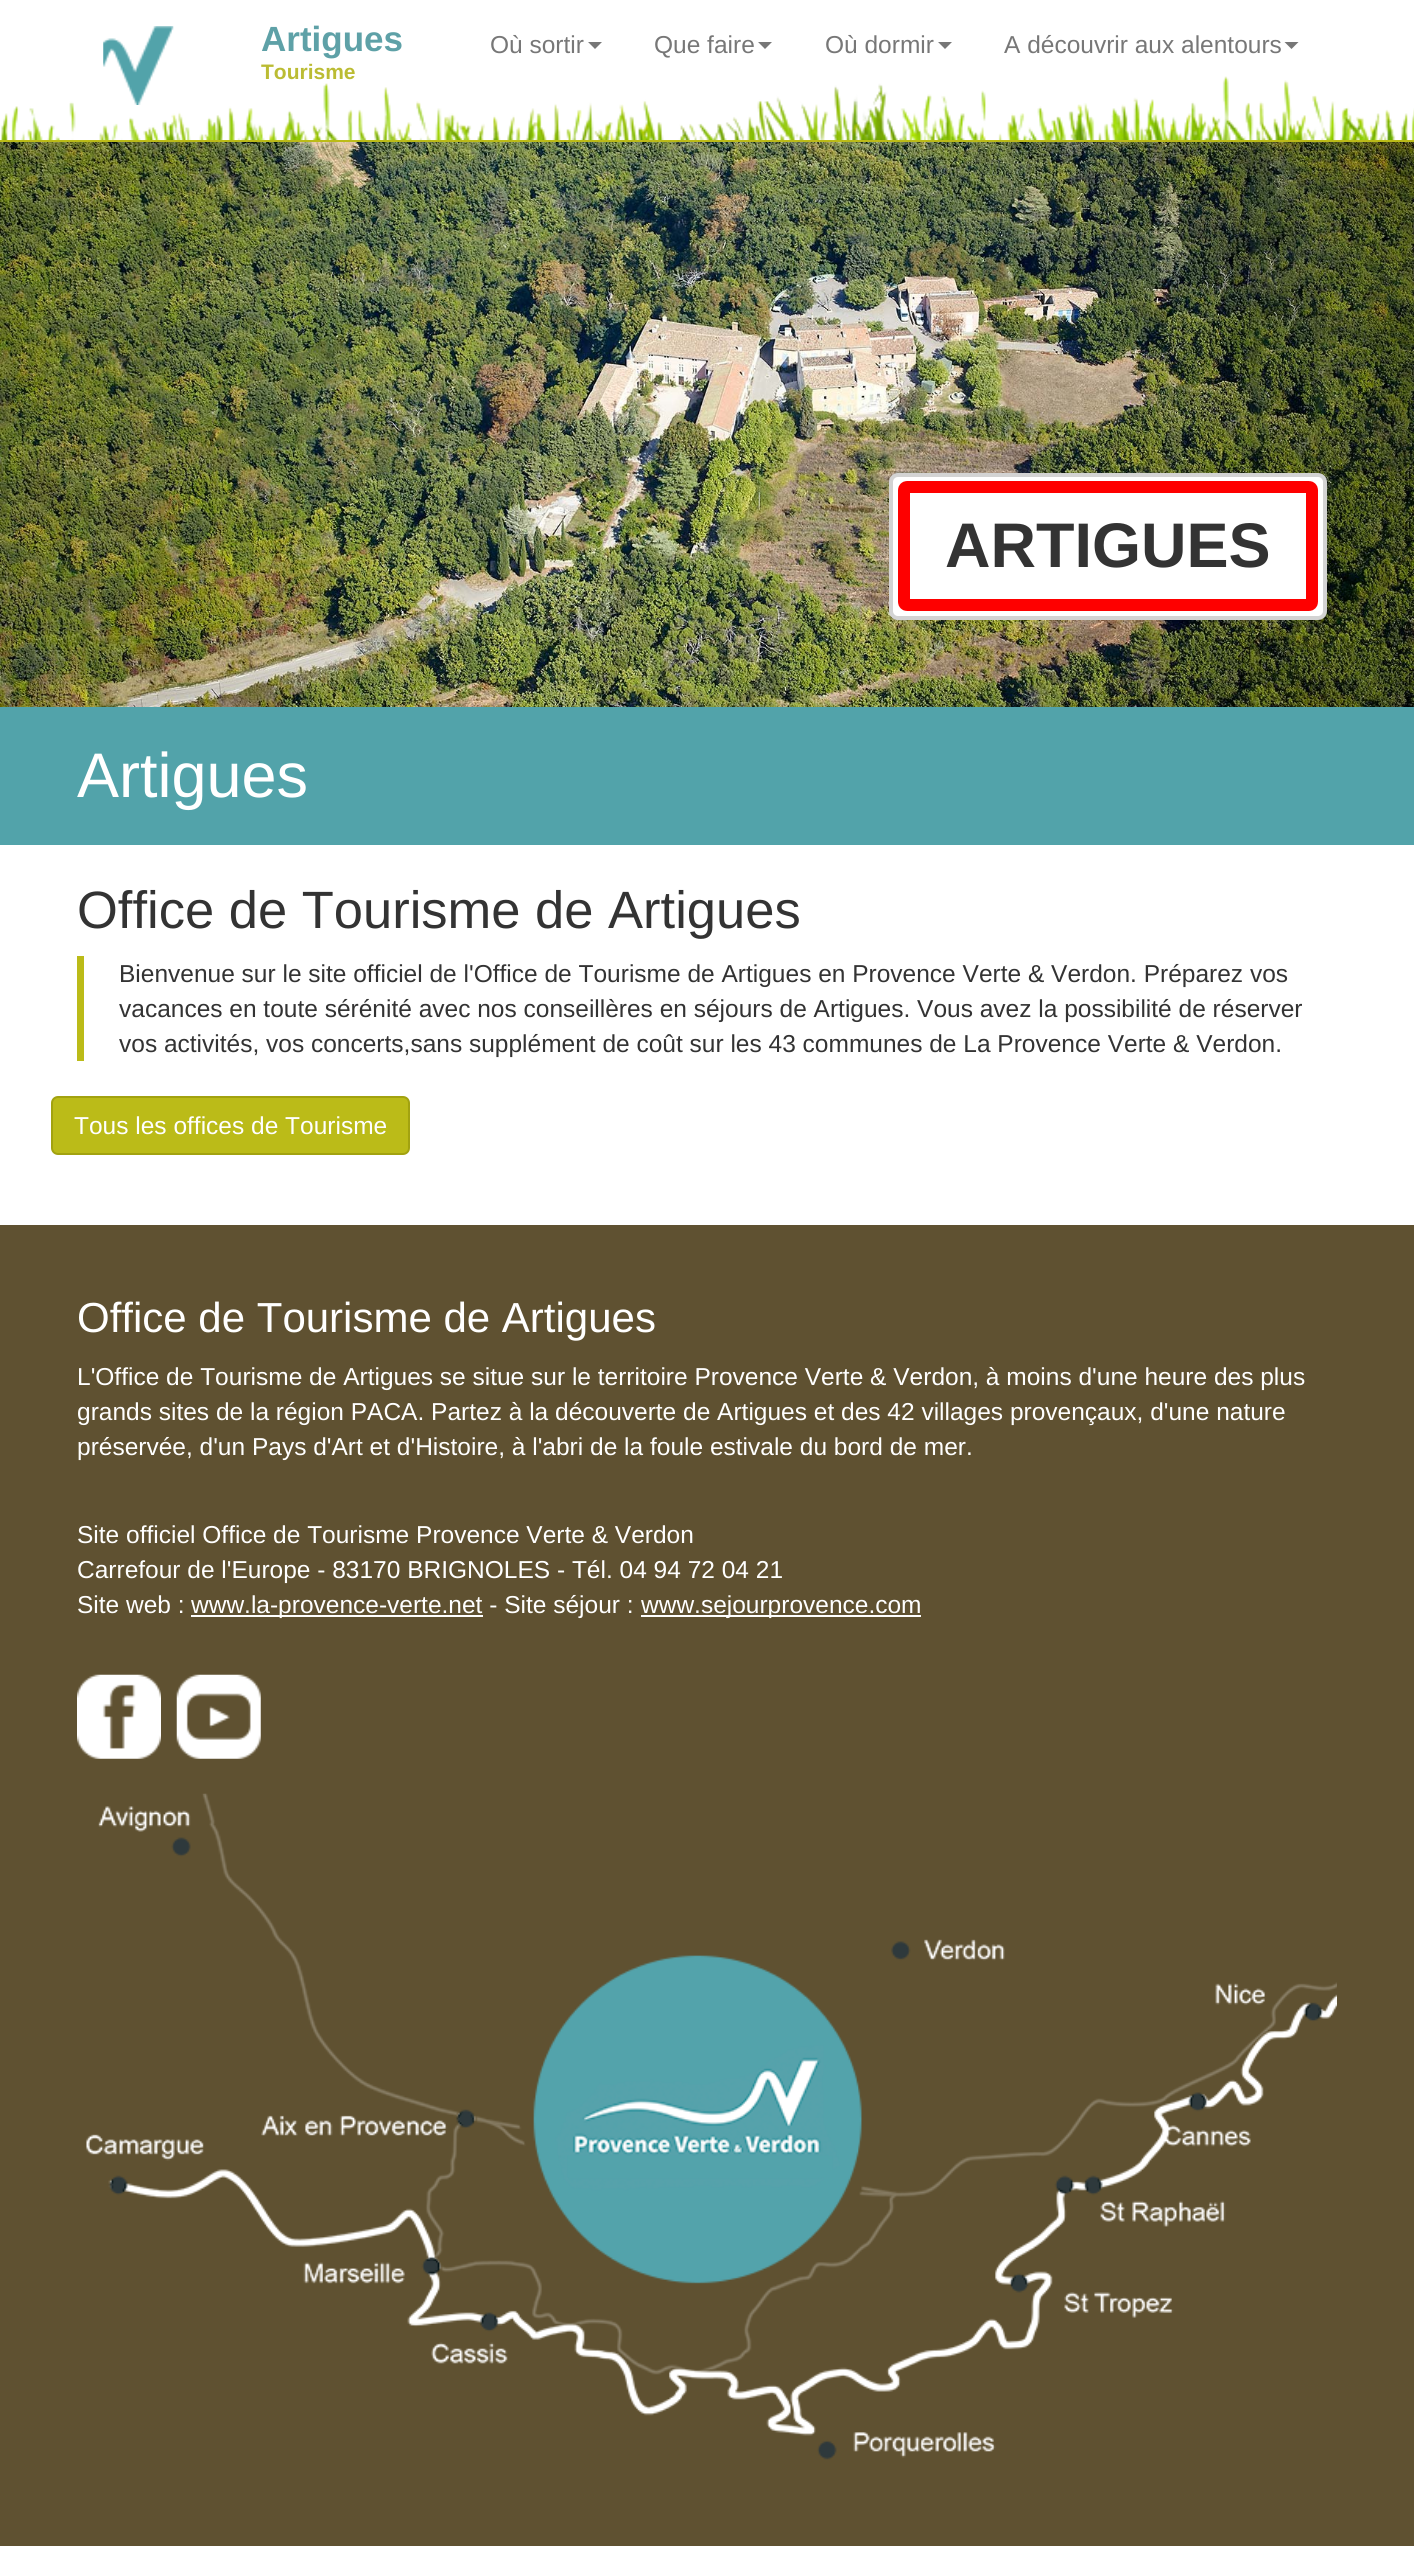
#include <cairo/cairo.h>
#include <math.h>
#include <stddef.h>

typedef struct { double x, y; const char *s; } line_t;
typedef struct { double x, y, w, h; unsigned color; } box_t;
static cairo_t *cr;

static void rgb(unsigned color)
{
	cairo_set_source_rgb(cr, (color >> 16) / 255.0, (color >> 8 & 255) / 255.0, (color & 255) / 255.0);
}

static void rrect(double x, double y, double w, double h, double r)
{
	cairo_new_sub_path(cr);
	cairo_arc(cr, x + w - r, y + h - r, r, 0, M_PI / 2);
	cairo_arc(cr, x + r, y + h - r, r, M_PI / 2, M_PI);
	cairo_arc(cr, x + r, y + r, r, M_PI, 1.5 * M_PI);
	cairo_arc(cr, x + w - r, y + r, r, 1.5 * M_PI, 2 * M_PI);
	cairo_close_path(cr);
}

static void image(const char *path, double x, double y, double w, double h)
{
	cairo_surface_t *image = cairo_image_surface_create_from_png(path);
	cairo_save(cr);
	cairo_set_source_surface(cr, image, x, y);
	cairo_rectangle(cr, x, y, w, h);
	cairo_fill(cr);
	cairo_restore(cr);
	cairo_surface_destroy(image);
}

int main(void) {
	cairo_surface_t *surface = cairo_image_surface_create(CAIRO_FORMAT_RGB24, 1414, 2557);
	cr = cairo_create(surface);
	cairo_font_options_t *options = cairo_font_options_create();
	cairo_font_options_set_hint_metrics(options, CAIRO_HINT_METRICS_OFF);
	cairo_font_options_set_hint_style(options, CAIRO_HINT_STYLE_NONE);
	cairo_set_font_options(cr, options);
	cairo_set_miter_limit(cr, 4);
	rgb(0xffffff);
	cairo_paint(cr);
	image("img/1.png", 0, 76, 1414, 64);
	rgb(0xbbbb18);
	cairo_rectangle(cr, 0, 140, 1414, 2);
	cairo_fill(cr);
	image("img/2.png", 103, 26, 71, 79);
	rgb(0x777777);
	cairo_new_path(cr);
	cairo_move_to(cr, 588, 42);
	cairo_line_to(cr, 602, 42);
	cairo_line_to(cr, 595, 49);
	cairo_close_path(cr);
	cairo_fill(cr);
	cairo_new_path(cr);
	cairo_move_to(cr, 758, 42);
	cairo_line_to(cr, 772, 42);
	cairo_line_to(cr, 765, 49);
	cairo_close_path(cr);
	cairo_fill(cr);
	cairo_new_path(cr);
	cairo_move_to(cr, 938, 42);
	cairo_line_to(cr, 952, 42);
	cairo_line_to(cr, 945, 49);
	cairo_close_path(cr);
	cairo_fill(cr);
	cairo_new_path(cr);
	cairo_move_to(cr, 1284.5, 42);
	cairo_line_to(cr, 1298.5, 42);
	cairo_line_to(cr, 1291.5, 49);
	cairo_close_path(cr);
	cairo_fill(cr);
	image("img/3.png", 0, 142, 1414, 565);
	rgb(0xffffff);
	rrect(891, 475, 434, 143, 7);
	cairo_fill_preserve(cr);
	rgb(0xd3d3d3);
	cairo_set_line_width(cr, 4);
	cairo_stroke(cr);
	rrect(904, 487, 408, 118, 3);
	rgb(0xfe0000);
	cairo_set_line_width(cr, 12);
	cairo_stroke(cr);
	rgb(0x52a3aa);
	cairo_rectangle(cr, 0, 707, 1414, 138);
	cairo_fill(cr);
	rgb(0xbbbb18);
	cairo_rectangle(cr, 77, 956, 7, 105);
	cairo_fill(cr);
	rrect(52, 1097, 357, 57, 6);
	cairo_fill_preserve(cr);
	rgb(0xa2a210);
	cairo_set_line_width(cr, 2);
	cairo_stroke(cr);
	{
		static const box_t items[] = {
			{0, 1225, 1414, 1321, 0x5f5131},
			{191, 1615, 292, 2, 0xffffff},
			{641, 1615, 280, 2, 0xffffff},
		};
		for (size_t i = 0; i < sizeof items / sizeof *items; i++) {
			rgb(items[i].color);
			cairo_rectangle(cr, items[i].x, items[i].y, items[i].w, items[i].h);
			cairo_fill(cr);
		}
	}
	image("img/4.png", 77, 1674, 84, 85);
	image("img/5.png", 176, 1674, 85, 85);
	image("img/6.png", 86, 1793, 1251, 667);
	cairo_select_font_face(cr, "Liberation Sans", CAIRO_FONT_SLANT_NORMAL, CAIRO_FONT_WEIGHT_BOLD);
	cairo_set_font_size(cr, 35);
	rgb(0x5ea1a7);
	cairo_move_to(cr, 261, 51);
	cairo_show_text(cr, "Artigues");
	cairo_set_font_size(cr, 21);
	rgb(0xbbbc33);
	cairo_move_to(cr, 261, 79);
	cairo_show_text(cr, "Tourisme");
	cairo_select_font_face(cr, "Liberation Sans", CAIRO_FONT_SLANT_NORMAL, CAIRO_FONT_WEIGHT_NORMAL);
	cairo_set_font_size(cr, 24.5);
	rgb(0x777777);
	{
		static const line_t items[] = {
			{490, 53, "Où sortir"},
			{654, 53, "Que faire"},
			{825, 53, "Où dormir"},
			{1004, 53, "A découvrir aux alentours"},
		};
		for (size_t i = 0; i < sizeof items / sizeof *items; i++) {
			cairo_move_to(cr, items[i].x, items[i].y);
			cairo_show_text(cr, items[i].s);
		}
	}
	cairo_select_font_face(cr, "Liberation Sans", CAIRO_FONT_SLANT_NORMAL, CAIRO_FONT_WEIGHT_BOLD);
	cairo_set_font_size(cr, 63);
	rgb(0x333333);
	cairo_move_to(cr, 945, 567);
	cairo_show_text(cr, "ARTIGUES");
	cairo_select_font_face(cr, "Liberation Sans", CAIRO_FONT_SLANT_NORMAL, CAIRO_FONT_WEIGHT_NORMAL);
	rgb(0xffffff);
	cairo_move_to(cr, 77, 797);
	cairo_show_text(cr, "Artigues");
	cairo_set_font_size(cr, 52.5);
	rgb(0x333333);
	cairo_move_to(cr, 77, 928);
	cairo_show_text(cr, "Office de Tourisme de Artigues");
	cairo_set_font_size(cr, 24.5);
	{
		static const line_t items[] = {
			{119, 982, "Bienvenue sur le site officiel de l'Office de Tourisme de Artigues en Provence Verte & Verdon. Préparez vos"},
			{119, 1017, "vacances en toute sérénité avec nos conseillères en séjours de Artigues. Vous avez la possibilité de réserver"},
			{119, 1052, "vos activités, vos concerts,sans supplément de coût sur les 43 communes de La Provence Verte & Verdon."},
		};
		for (size_t i = 0; i < sizeof items / sizeof *items; i++) {
			cairo_move_to(cr, items[i].x, items[i].y);
			cairo_show_text(cr, items[i].s);
		}
	}
	rgb(0xffffff);
	cairo_move_to(cr, 74, 1134);
	cairo_show_text(cr, "Tous les offices de Tourisme");
	cairo_set_font_size(cr, 42);
	cairo_move_to(cr, 77, 1332);
	cairo_show_text(cr, "Office de Tourisme de Artigues");
	cairo_set_font_size(cr, 24.5);
	{
		static const line_t items[] = {
			{77, 1385, "L'Office de Tourisme de Artigues se situe sur le territoire Provence Verte & Verdon, à moins d'une heure des plus"},
			{77, 1420, "grands sites de la région PACA. Partez à la découverte de Artigues et des 42 villages provençaux, d'une nature"},
			{77, 1455, "préservée, d'un Pays d'Art et d'Histoire, à l'abri de la foule estivale du bord de mer."},
			{77, 1543, "Site officiel Office de Tourisme Provence Verte & Verdon"},
			{77, 1578, "Carrefour de l'Europe - 83170 BRIGNOLES - Tél. 04 94 72 04 21"},
			{77, 1613, "Site web :"},
			{191, 1613, "www.la-provence-verte.net - Site séjour :"},
			{641, 1613, "www.sejourprovence.com"},
		};
		for (size_t i = 0; i < sizeof items / sizeof *items; i++) {
			cairo_move_to(cr, items[i].x, items[i].y);
			cairo_show_text(cr, items[i].s);
		}
	}
	cairo_surface_write_to_png(surface, "page.png");
	cairo_font_options_destroy(options);
	cairo_destroy(cr);
	cairo_surface_destroy(surface);
	return 0;
}
